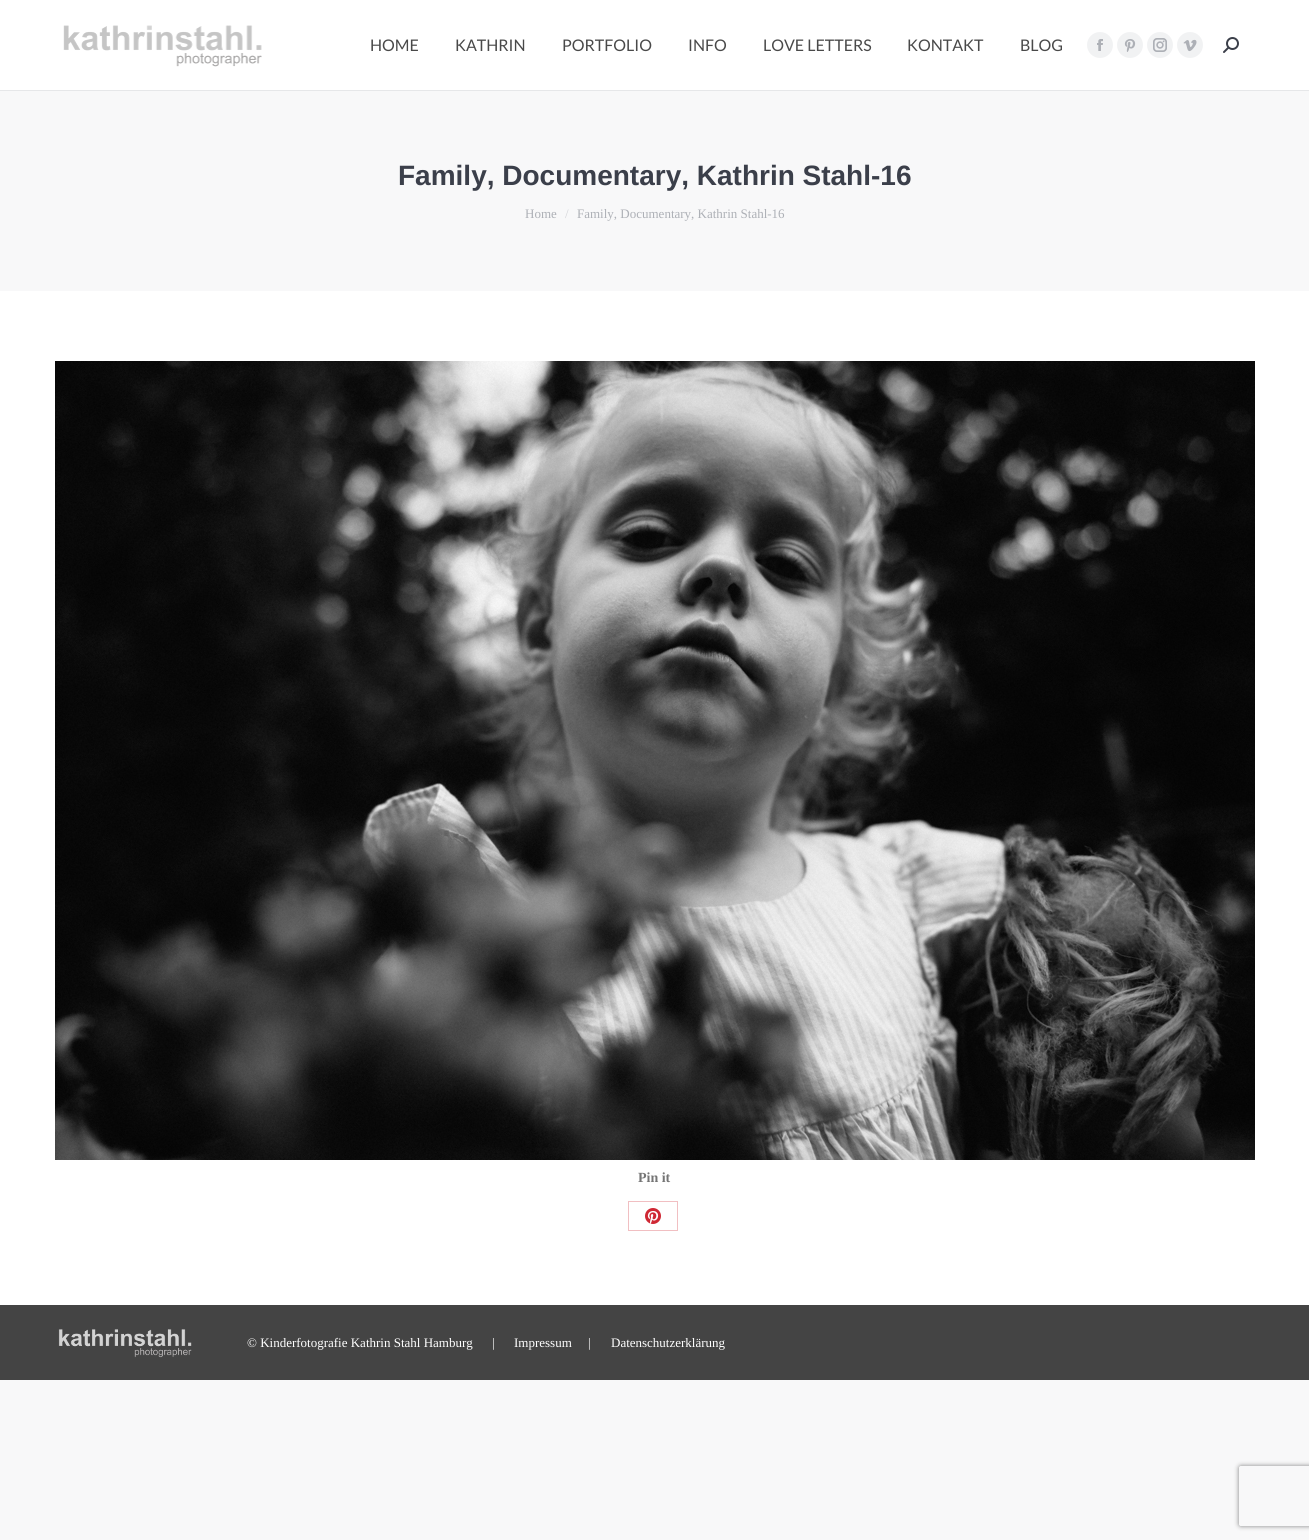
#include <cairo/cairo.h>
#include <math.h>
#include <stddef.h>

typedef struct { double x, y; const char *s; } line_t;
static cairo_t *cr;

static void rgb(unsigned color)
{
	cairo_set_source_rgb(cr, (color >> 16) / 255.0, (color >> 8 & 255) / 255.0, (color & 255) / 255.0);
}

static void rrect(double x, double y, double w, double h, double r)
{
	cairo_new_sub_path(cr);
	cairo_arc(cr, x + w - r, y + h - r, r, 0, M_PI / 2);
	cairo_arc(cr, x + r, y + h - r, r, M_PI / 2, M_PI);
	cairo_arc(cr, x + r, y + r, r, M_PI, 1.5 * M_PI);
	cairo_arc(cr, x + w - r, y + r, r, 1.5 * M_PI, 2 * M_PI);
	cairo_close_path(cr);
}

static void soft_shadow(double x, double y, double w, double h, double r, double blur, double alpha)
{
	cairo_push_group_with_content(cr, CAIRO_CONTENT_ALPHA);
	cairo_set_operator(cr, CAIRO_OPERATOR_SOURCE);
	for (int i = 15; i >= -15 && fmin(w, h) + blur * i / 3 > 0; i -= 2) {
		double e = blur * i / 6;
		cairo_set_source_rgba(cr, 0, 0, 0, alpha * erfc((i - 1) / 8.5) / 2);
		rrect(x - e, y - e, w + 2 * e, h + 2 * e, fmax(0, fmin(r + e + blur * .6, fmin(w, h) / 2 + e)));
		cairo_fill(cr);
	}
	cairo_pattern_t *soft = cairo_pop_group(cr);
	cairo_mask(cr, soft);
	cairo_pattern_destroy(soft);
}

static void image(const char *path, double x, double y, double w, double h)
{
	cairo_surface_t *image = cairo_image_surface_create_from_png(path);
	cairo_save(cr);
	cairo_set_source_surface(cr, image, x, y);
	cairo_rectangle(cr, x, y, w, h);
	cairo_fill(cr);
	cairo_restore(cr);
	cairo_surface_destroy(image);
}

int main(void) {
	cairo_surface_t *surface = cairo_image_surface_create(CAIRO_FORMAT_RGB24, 1309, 1540);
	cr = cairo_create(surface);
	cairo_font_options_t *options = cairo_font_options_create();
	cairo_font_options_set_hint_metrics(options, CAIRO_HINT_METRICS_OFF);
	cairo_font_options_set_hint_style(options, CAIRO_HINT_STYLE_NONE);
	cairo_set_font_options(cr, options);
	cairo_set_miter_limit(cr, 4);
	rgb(0xf8f8f9);
	cairo_paint(cr);
	rgb(0xffffff);
	cairo_rectangle(cr, 0, 0, 1309, 1305);
	cairo_fill(cr);
	rgb(0xe6e7e9);
	cairo_rectangle(cr, 0, 90, 1309, 1);
	cairo_fill(cr);
	image("img/1.png", 63, 25, 199, 42);
	rgb(0xf1f2f3);
	cairo_arc(cr, 1100, 45, 13, 0, 2 * M_PI);
	cairo_fill(cr);
	image("img/2.png", 1097, 39, 6, 12);
	cairo_arc(cr, 1130, 45, 13, 0, 2 * M_PI);
	cairo_fill(cr);
	image("img/3.png", 1124, 39, 12, 13);
	cairo_arc(cr, 1160, 45, 13, 0, 2 * M_PI);
	cairo_fill(cr);
	image("img/4.png", 1153, 38, 14, 14);
	cairo_arc(cr, 1190, 45, 13, 0, 2 * M_PI);
	cairo_fill(cr);
	image("img/5.png", 1183, 39, 14, 13);
	image("img/6.png", 1223, 37, 16, 16);
	rgb(0xf8f8f9);
	cairo_rectangle(cr, 0, 91, 1309, 200);
	cairo_fill(cr);
	image("img/7.png", 55, 361, 1200, 799);
	cairo_rectangle(cr, 628.5, 1201.5, 49, 29);
	rgb(0xf1bfc2);
	cairo_set_line_width(cr, 1);
	cairo_stroke(cr);
	image("img/8.png", 645, 1208, 16, 16);
	rgb(0x444444);
	cairo_rectangle(cr, 0, 1305, 1309, 75);
	cairo_fill(cr);
	image("img/9.png", 58, 1329, 134, 29);
	cairo_save(cr);
	cairo_set_fill_rule(cr, CAIRO_FILL_RULE_EVEN_ODD);
	cairo_new_path(cr);
	cairo_move_to(cr, 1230, 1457);
	cairo_line_to(cr, 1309, 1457);
	cairo_line_to(cr, 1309, 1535);
	cairo_line_to(cr, 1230, 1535);
	cairo_close_path(cr);
	cairo_move_to(cr, 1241, 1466);
	cairo_line_to(cr, 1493, 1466);
	cairo_curve_to(cr, 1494, 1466, 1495, 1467, 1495, 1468);
	cairo_line_to(cr, 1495, 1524);
	cairo_curve_to(cr, 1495, 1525, 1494, 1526, 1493, 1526);
	cairo_line_to(cr, 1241, 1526);
	cairo_curve_to(cr, 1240, 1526, 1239, 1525, 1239, 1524);
	cairo_line_to(cr, 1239, 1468);
	cairo_curve_to(cr, 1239, 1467, 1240, 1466, 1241, 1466);
	cairo_close_path(cr);
	cairo_clip(cr);
	rgb(0x808080);
	soft_shadow(1239, 1466, 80, 60, 2, 2.5, 1);
	cairo_restore(cr);
	cairo_select_font_face(cr, "Lato", CAIRO_FONT_SLANT_NORMAL, CAIRO_FONT_WEIGHT_NORMAL);
	cairo_set_font_size(cr, 16);
	rgb(0x494949);
	{
		static const line_t items[] = {
			{370, 51, "HOME"},
			{455, 51, "KATHRIN"},
			{562, 51, "PORTFOLIO"},
			{688, 51, "INFO"},
			{763, 51, "LOVE LETTERS"},
			{907, 51, "KONTAKT"},
			{1020, 51, "BLOG"},
		};
		for (size_t i = 0; i < sizeof items / sizeof *items; i++) {
			cairo_move_to(cr, items[i].x, items[i].y);
			cairo_show_text(cr, items[i].s);
		}
	}
	cairo_select_font_face(cr, "Arimo", CAIRO_FONT_SLANT_NORMAL, CAIRO_FONT_WEIGHT_BOLD);
	cairo_set_font_size(cr, 28);
	rgb(0x3b3f4a);
	cairo_move_to(cr, 398, 185);
	cairo_show_text(cr, "Family, Documentary, Kathrin Stahl-16");
	cairo_select_font_face(cr, "Liberation Serif", CAIRO_FONT_SLANT_NORMAL, CAIRO_FONT_WEIGHT_NORMAL);
	cairo_set_font_size(cr, 13);
	rgb(0xadb0b6);
	cairo_move_to(cr, 525, 218);
	cairo_show_text(cr, "Home");
	rgb(0xd3d4d8);
	cairo_move_to(cr, 565, 218);
	cairo_show_text(cr, "/");
	rgb(0xadb0b6);
	cairo_move_to(cr, 577, 218);
	cairo_show_text(cr, "Family, Documentary, Kathrin Stahl-16");
	cairo_select_font_face(cr, "Liberation Serif", CAIRO_FONT_SLANT_NORMAL, CAIRO_FONT_WEIGHT_BOLD);
	cairo_set_font_size(cr, 14);
	rgb(0x757575);
	cairo_move_to(cr, 638, 1182);
	cairo_show_text(cr, "Pin it");
	cairo_select_font_face(cr, "Liberation Serif", CAIRO_FONT_SLANT_NORMAL, CAIRO_FONT_WEIGHT_NORMAL);
	cairo_set_font_size(cr, 13);
	rgb(0xffffff);
	{
		static const line_t items[] = {
			{247, 1347, "© Kinderfotografie Kathrin Stahl Hamburg   |"},
			{514, 1347, "Impressum"},
			{588, 1347, "|"},
			{611, 1347, "Datenschutzerklärung"},
		};
		for (size_t i = 0; i < sizeof items / sizeof *items; i++) {
			cairo_move_to(cr, items[i].x, items[i].y);
			cairo_show_text(cr, items[i].s);
		}
	}
	cairo_surface_write_to_png(surface, "page.png");
	cairo_font_options_destroy(options);
	cairo_destroy(cr);
	cairo_surface_destroy(surface);
	return 0;
}
